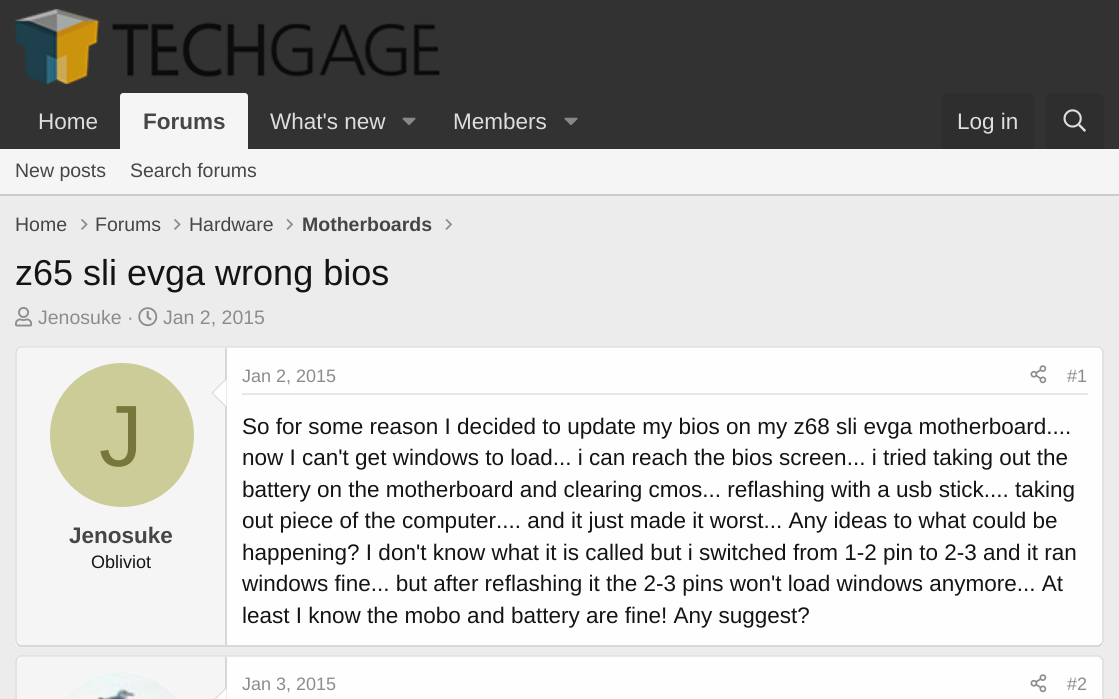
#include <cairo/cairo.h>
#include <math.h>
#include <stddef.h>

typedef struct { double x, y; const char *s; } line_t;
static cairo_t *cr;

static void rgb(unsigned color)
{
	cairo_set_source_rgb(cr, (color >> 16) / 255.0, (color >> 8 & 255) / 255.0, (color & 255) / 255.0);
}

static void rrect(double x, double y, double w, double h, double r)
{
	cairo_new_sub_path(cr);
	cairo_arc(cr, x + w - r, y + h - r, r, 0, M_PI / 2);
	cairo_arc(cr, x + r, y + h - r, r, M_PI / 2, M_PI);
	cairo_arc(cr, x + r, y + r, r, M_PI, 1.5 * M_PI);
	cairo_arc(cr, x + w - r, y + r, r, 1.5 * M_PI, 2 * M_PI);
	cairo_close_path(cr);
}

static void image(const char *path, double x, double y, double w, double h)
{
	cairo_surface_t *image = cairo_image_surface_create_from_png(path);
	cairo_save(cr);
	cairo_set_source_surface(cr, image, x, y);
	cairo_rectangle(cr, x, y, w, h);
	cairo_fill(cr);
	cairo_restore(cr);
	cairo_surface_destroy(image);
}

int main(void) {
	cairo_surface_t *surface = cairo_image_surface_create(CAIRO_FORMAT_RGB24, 1119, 699);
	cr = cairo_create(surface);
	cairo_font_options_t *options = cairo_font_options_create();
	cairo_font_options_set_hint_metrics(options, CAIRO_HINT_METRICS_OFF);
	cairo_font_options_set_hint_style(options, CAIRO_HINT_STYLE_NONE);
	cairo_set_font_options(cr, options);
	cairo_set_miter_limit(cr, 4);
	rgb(0xececec);
	cairo_paint(cr);
	rgb(0x323232);
	cairo_rectangle(cr, 0, 0, 1119, 149);
	cairo_fill(cr);
	image("img/1.png", 15, 9, 425, 75);
	rgb(0xf5f5f5);
	cairo_new_path(cr);
	cairo_move_to(cr, 123, 93);
	cairo_line_to(cr, 245, 93);
	cairo_curve_to(cr, 246.5, 93, 248, 94.5, 248, 96);
	cairo_line_to(cr, 248, 149);
	cairo_line_to(cr, 120, 149);
	cairo_line_to(cr, 120, 96);
	cairo_curve_to(cr, 120, 94.5, 121.5, 93, 123, 93);
	cairo_close_path(cr);
	cairo_fill(cr);
	image("img/2.png", 402, 117, 14, 9);
	image("img/2.png", 564, 117, 14, 9);
	rgb(0x2e2e2e);
	cairo_new_path(cr);
	cairo_move_to(cr, 948, 93);
	cairo_line_to(cr, 1028, 93);
	cairo_curve_to(cr, 1031.5, 93, 1034, 95.5, 1034, 99);
	cairo_line_to(cr, 1034, 149);
	cairo_line_to(cr, 942, 149);
	cairo_line_to(cr, 942, 99);
	cairo_curve_to(cr, 942, 95.5, 944.5, 93, 948, 93);
	cairo_close_path(cr);
	cairo_fill(cr);
	cairo_new_path(cr);
	cairo_move_to(cr, 1052, 93);
	cairo_line_to(cr, 1098, 93);
	cairo_curve_to(cr, 1101.5, 93, 1104, 95.5, 1104, 99);
	cairo_line_to(cr, 1104, 149);
	cairo_line_to(cr, 1046, 149);
	cairo_line_to(cr, 1046, 99);
	cairo_curve_to(cr, 1046, 95.5, 1048.5, 93, 1052, 93);
	cairo_close_path(cr);
	cairo_fill(cr);
	image("img/3.png", 1063, 109, 23, 23);
	rgb(0xf5f5f5);
	cairo_rectangle(cr, 0, 149, 1119, 45);
	cairo_fill(cr);
	rgb(0xcbcbcb);
	cairo_rectangle(cr, 0, 194, 1119, 2);
	cairo_fill(cr);
	image("img/4.png", 81, 219, 7, 11);
	image("img/4.png", 174, 219, 7, 11);
	image("img/5.png", 286, 219, 7, 11);
	image("img/5.png", 445, 219, 7, 11);
	image("img/6.png", 15, 306, 18, 21);
	image("img/7.png", 138, 307, 20, 20);
	rgb(0xfefefe);
	rrect(15, 347, 1089, 300, 6);
	cairo_fill(cr);
	cairo_new_path(cr);
	cairo_move_to(cr, 17.5, 349);
	cairo_curve_to(cr, 18.5, 348, 19.5, 347, 21, 347);
	cairo_line_to(cr, 1098, 347);
	cairo_curve_to(cr, 1099.5, 347, 1100.5, 348, 1101.5, 349);
	rgb(0xdfdfdf);
	cairo_set_line_width(cr, 1.5);
	cairo_stroke(cr);
	cairo_new_path(cr);
	cairo_move_to(cr, 1101.5, 349);
	cairo_curve_to(cr, 1102.5, 350, 1103, 351, 1103, 352.5);
	cairo_line_to(cr, 1103, 640.5);
	cairo_curve_to(cr, 1103, 642, 1102.5, 643, 1101.5, 644);
	rgb(0xd8d8d8);
	cairo_stroke(cr);
	cairo_new_path(cr);
	cairo_move_to(cr, 1101.5, 644);
	cairo_curve_to(cr, 1100.5, 645, 1099.5, 646, 1098, 646);
	cairo_line_to(cr, 21, 646);
	cairo_curve_to(cr, 19.5, 646, 18.5, 645, 17.5, 644);
	rgb(0xcbcbcb);
	cairo_stroke(cr);
	cairo_new_path(cr);
	cairo_move_to(cr, 17.5, 644);
	cairo_curve_to(cr, 16.5, 643, 16, 642, 16, 640.5);
	cairo_line_to(cr, 16, 352.5);
	cairo_curve_to(cr, 16, 351, 16.5, 350, 17.5, 349);
	rgb(0xd8d8d8);
	cairo_stroke(cr);
	rgb(0xf5f5f5);
	cairo_new_path(cr);
	cairo_move_to(cr, 22, 348);
	cairo_line_to(cr, 227, 348);
	cairo_line_to(cr, 227, 645);
	cairo_line_to(cr, 22, 645);
	cairo_curve_to(cr, 19, 645, 17, 643, 17, 640);
	cairo_line_to(cr, 17, 353);
	cairo_curve_to(cr, 17, 350, 19, 348, 22, 348);
	cairo_close_path(cr);
	cairo_fill(cr);
	rgb(0xd8d8d8);
	cairo_rectangle(cr, 225, 348, 2, 297);
	cairo_fill(cr);
	cairo_new_path(cr);
	cairo_move_to(cr, 226.5, 378);
	cairo_line_to(cr, 226.5, 408);
	cairo_line_to(cr, 211.5, 393);
	cairo_close_path(cr);
	cairo_fill(cr);
	rgb(0xfefefe);
	cairo_new_path(cr);
	cairo_move_to(cr, 226.5, 379.5);
	cairo_line_to(cr, 226.5, 406.5);
	cairo_line_to(cr, 213, 393);
	cairo_close_path(cr);
	cairo_fill(cr);
	rgb(0xcccc99);
	cairo_arc(cr, 122, 435, 72, 0, 2 * M_PI);
	cairo_fill(cr);
	rgb(0xe7e7e7);
	cairo_rectangle(cr, 242, 393, 846, 2);
	cairo_fill(cr);
	image("img/8.png", 1030, 365, 17, 19);
	rgb(0xfefefe);
	rrect(15, 656, 1089, 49, 6);
	cairo_fill(cr);
	cairo_new_path(cr);
	cairo_move_to(cr, 17.5, 658);
	cairo_curve_to(cr, 18.5, 657, 19.5, 656, 21, 656);
	cairo_line_to(cr, 1098, 656);
	cairo_curve_to(cr, 1099.5, 656, 1100.5, 657, 1101.5, 658);
	rgb(0xdfdfdf);
	cairo_stroke(cr);
	cairo_new_path(cr);
	cairo_move_to(cr, 1101.5, 658);
	cairo_curve_to(cr, 1102.5, 659, 1103, 660, 1103, 661.5);
	cairo_line_to(cr, 1103, 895.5);
	cairo_curve_to(cr, 1103, 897, 1102.5, 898, 1101.5, 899);
	rgb(0xd8d8d8);
	cairo_stroke(cr);
	cairo_new_path(cr);
	cairo_move_to(cr, 17.5, 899);
	cairo_curve_to(cr, 16.5, 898, 16, 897, 16, 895.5);
	cairo_line_to(cr, 16, 661.5);
	cairo_curve_to(cr, 16, 660, 16.5, 659, 17.5, 658);
	cairo_stroke(cr);
	rgb(0xf5f5f5);
	cairo_new_path(cr);
	cairo_move_to(cr, 22, 657);
	cairo_line_to(cr, 227, 657);
	cairo_line_to(cr, 227, 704);
	cairo_line_to(cr, 22, 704);
	cairo_curve_to(cr, 19, 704, 17, 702, 17, 699);
	cairo_line_to(cr, 17, 662);
	cairo_curve_to(cr, 17, 659, 19, 657, 22, 657);
	cairo_close_path(cr);
	cairo_fill(cr);
	rgb(0xd8d8d8);
	cairo_rectangle(cr, 225, 657, 2, 42);
	cairo_fill(cr);
	rgb(0xfefefe);
	rrect(50, 672, 144, 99, 72);
	cairo_fill(cr);
	image("img/9.png", 66, 672, 111, 27);
	rgb(0xd8d8d8);
	cairo_new_path(cr);
	cairo_move_to(cr, 226.5, 687);
	cairo_line_to(cr, 226.5, 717);
	cairo_line_to(cr, 211.5, 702);
	cairo_close_path(cr);
	cairo_fill(cr);
	rgb(0xfefefe);
	cairo_new_path(cr);
	cairo_move_to(cr, 226.5, 688.5);
	cairo_line_to(cr, 226.5, 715.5);
	cairo_line_to(cr, 213, 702);
	cairo_close_path(cr);
	cairo_fill(cr);
	image("img/8.png", 1030, 674, 17, 19);
	cairo_select_font_face(cr, "Liberation Sans", CAIRO_FONT_SLANT_NORMAL, CAIRO_FONT_WEIGHT_NORMAL);
	cairo_set_font_size(cr, 22.5);
	rgb(0xdedede);
	cairo_move_to(cr, 38, 129);
	cairo_show_text(cr, "Home");
	cairo_select_font_face(cr, "Liberation Sans", CAIRO_FONT_SLANT_NORMAL, CAIRO_FONT_WEIGHT_BOLD);
	rgb(0x464646);
	cairo_move_to(cr, 143, 129);
	cairo_show_text(cr, "Forums");
	cairo_select_font_face(cr, "Liberation Sans", CAIRO_FONT_SLANT_NORMAL, CAIRO_FONT_WEIGHT_NORMAL);
	rgb(0xdedede);
	{
		static const line_t items[] = {
			{270, 129, "What's new"},
			{453, 129, "Members"},
			{957, 129, "Log in"},
		};
		for (size_t i = 0; i < sizeof items / sizeof *items; i++) {
			cairo_move_to(cr, items[i].x, items[i].y);
			cairo_show_text(cr, items[i].s);
		}
	}
	cairo_set_font_size(cr, 19.5);
	rgb(0x464646);
	{
		static const line_t items[] = {
			{15, 177, "New posts"},
			{130, 177, "Search forums"},
			{15, 231, "Home"},
			{95, 231, "Forums"},
			{189, 231, "Hardware"},
		};
		for (size_t i = 0; i < sizeof items / sizeof *items; i++) {
			cairo_move_to(cr, items[i].x, items[i].y);
			cairo_show_text(cr, items[i].s);
		}
	}
	cairo_select_font_face(cr, "Liberation Sans", CAIRO_FONT_SLANT_NORMAL, CAIRO_FONT_WEIGHT_BOLD);
	cairo_move_to(cr, 302, 231);
	cairo_show_text(cr, "Motherboards");
	cairo_select_font_face(cr, "Liberation Sans", CAIRO_FONT_SLANT_NORMAL, CAIRO_FONT_WEIGHT_NORMAL);
	cairo_set_font_size(cr, 36);
	rgb(0x141414);
	cairo_move_to(cr, 15, 285);
	cairo_show_text(cr, "z65 sli evga wrong bios");
	cairo_set_font_size(cr, 19.5);
	rgb(0x8c8c8c);
	cairo_move_to(cr, 38, 324);
	cairo_show_text(cr, "Jenosuke ·");
	cairo_move_to(cr, 163, 324);
	cairo_show_text(cr, "Jan 2, 2015");
	cairo_set_font_size(cr, 87);
	rgb(0x77773c);
	cairo_move_to(cr, 99, 466);
	cairo_show_text(cr, "J");
	cairo_select_font_face(cr, "Liberation Sans", CAIRO_FONT_SLANT_NORMAL, CAIRO_FONT_WEIGHT_BOLD);
	cairo_set_font_size(cr, 22.5);
	rgb(0x464646);
	cairo_move_to(cr, 69, 543);
	cairo_show_text(cr, "Jenosuke");
	cairo_select_font_face(cr, "Liberation Sans", CAIRO_FONT_SLANT_NORMAL, CAIRO_FONT_WEIGHT_NORMAL);
	cairo_set_font_size(cr, 18);
	rgb(0x141414);
	cairo_move_to(cr, 91, 568);
	cairo_show_text(cr, "Obliviot");
	rgb(0x8c8c8c);
	cairo_move_to(cr, 242, 382);
	cairo_show_text(cr, "Jan 2, 2015");
	cairo_move_to(cr, 1067, 382);
	cairo_show_text(cr, "#1");
	cairo_set_font_size(cr, 22.5);
	rgb(0x141414);
	{
		static const line_t items[] = {
			{242, 434, "So for some reason I decided to update my bios on my z68 sli evga motherboard...."},
			{242, 465, "now I can't get windows to load... i can reach the bios screen... i tried taking out the"},
			{242, 497, "battery on the motherboard and clearing cmos... reflashing with a usb stick.... taking"},
			{242, 528, "out piece of the computer.... and it just made it worst... Any ideas to what could be"},
			{242, 560, "happening? I don't know what it is called but i switched from 1-2 pin to 2-3 and it ran"},
			{242, 591, "windows fine... but after reflashing it the 2-3 pins won't load windows anymore... At"},
			{242, 623, "least I know the mobo and battery are fine! Any suggest?"},
		};
		for (size_t i = 0; i < sizeof items / sizeof *items; i++) {
			cairo_move_to(cr, items[i].x, items[i].y);
			cairo_show_text(cr, items[i].s);
		}
	}
	cairo_set_font_size(cr, 18);
	rgb(0x8c8c8c);
	cairo_move_to(cr, 242, 690);
	cairo_show_text(cr, "Jan 3, 2015");
	cairo_move_to(cr, 1067, 690);
	cairo_show_text(cr, "#2");
	cairo_surface_write_to_png(surface, "page.png");
	cairo_font_options_destroy(options);
	cairo_destroy(cr);
	cairo_surface_destroy(surface);
	return 0;
}
